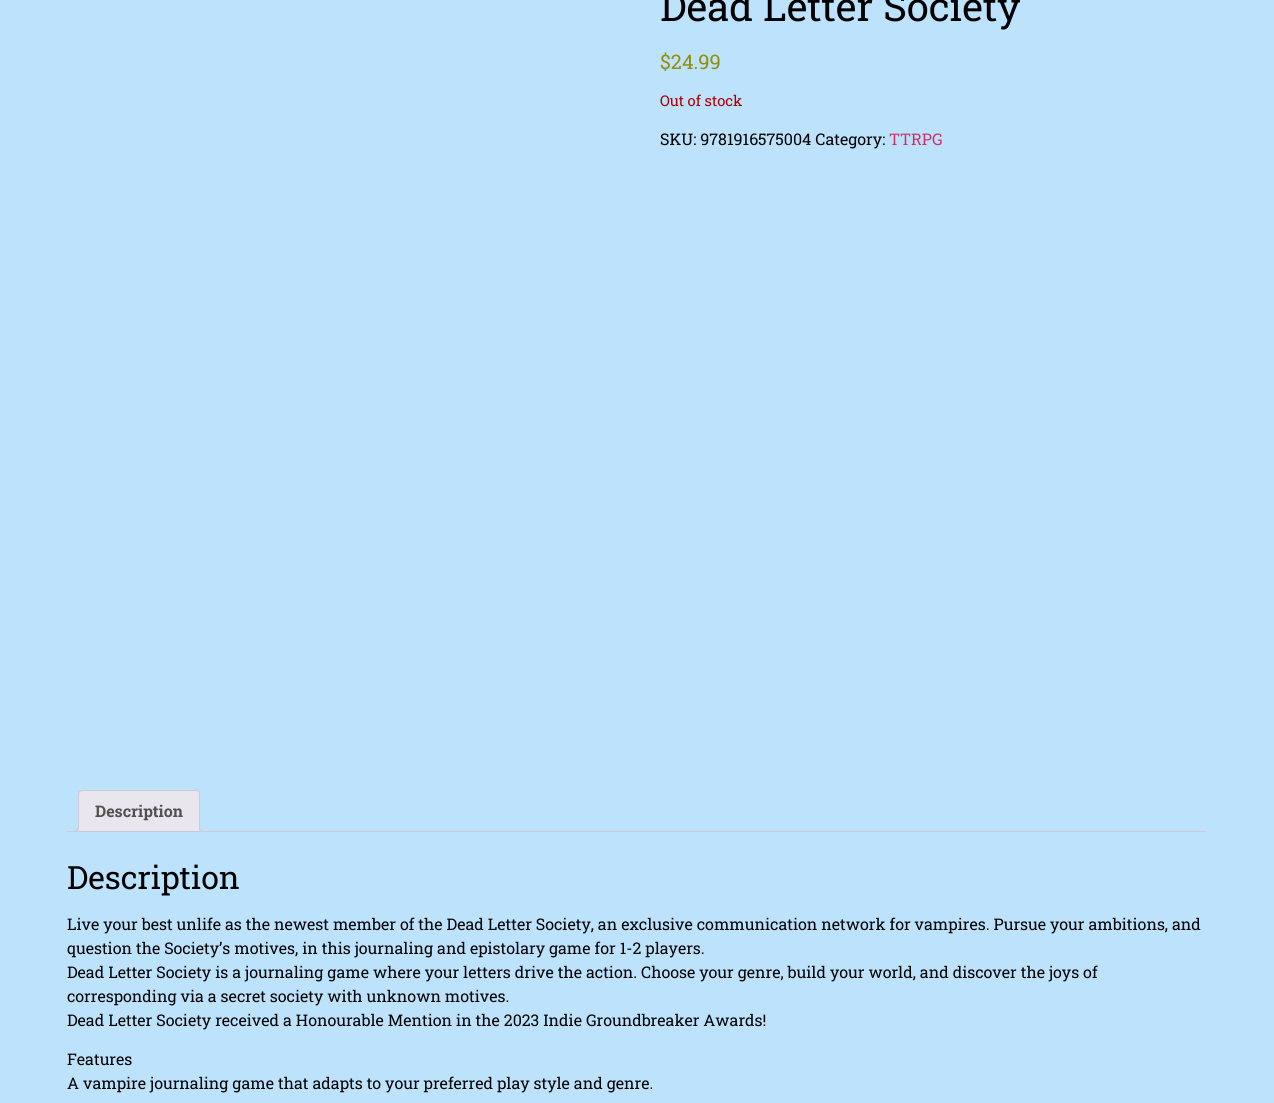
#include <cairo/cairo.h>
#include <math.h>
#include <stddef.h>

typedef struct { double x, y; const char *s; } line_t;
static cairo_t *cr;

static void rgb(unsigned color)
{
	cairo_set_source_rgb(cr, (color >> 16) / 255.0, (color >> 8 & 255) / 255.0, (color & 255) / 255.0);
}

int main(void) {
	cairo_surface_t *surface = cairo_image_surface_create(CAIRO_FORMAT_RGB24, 1274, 1103);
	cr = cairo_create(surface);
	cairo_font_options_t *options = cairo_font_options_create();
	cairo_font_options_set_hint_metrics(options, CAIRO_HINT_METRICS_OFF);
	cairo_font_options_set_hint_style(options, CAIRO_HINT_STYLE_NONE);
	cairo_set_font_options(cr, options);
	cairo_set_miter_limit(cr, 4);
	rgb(0xbce2fc);
	cairo_paint(cr);
	rgb(0xe9e6ed);
	cairo_new_path(cr);
	cairo_move_to(cr, 82, 790.5);
	cairo_line_to(cr, 196, 790.5);
	cairo_curve_to(cr, 198, 790.5, 199.5, 792, 199.5, 794);
	cairo_line_to(cr, 199.5, 831.5);
	cairo_line_to(cr, 78.5, 831.5);
	cairo_line_to(cr, 78.5, 794);
	cairo_curve_to(cr, 78.5, 792, 80, 790.5, 82, 790.5);
	cairo_close_path(cr);
	cairo_fill_preserve(cr);
	rgb(0xcfc8d8);
	cairo_set_line_width(cr, 1);
	cairo_stroke(cr);
	cairo_save(cr);
	cairo_rectangle(cr, 67, 790, 1140, 42);
	cairo_clip(cr);
	rgb(0xe9e6ed);
	cairo_new_path(cr);
	cairo_move_to(cr, 76, 832);
	cairo_line_to(cr, 76, 834);
	cairo_curve_to(cr, 79.5, 834, 81, 832.5, 81, 829);
	cairo_line_to(cr, 79, 829);
	cairo_curve_to(cr, 78.5, 830.5, 77.5, 831.5, 76, 832);
	cairo_close_path(cr);
	cairo_fill(cr);
	cairo_restore(cr);
	cairo_set_fill_rule(cr, CAIRO_FILL_RULE_EVEN_ODD);
	cairo_new_path(cr);
	cairo_move_to(cr, 74, 827);
	cairo_line_to(cr, 79, 827);
	cairo_curve_to(cr, 79, 830.5, 77.5, 832, 74, 832);
	cairo_close_path(cr);
	cairo_move_to(cr, 74, 827);
	cairo_line_to(cr, 78, 827);
	cairo_curve_to(cr, 78, 830, 77, 831, 74, 831);
	cairo_close_path(cr);
	cairo_fill(cr);
	cairo_save(cr);
	cairo_set_fill_rule(cr, CAIRO_FILL_RULE_WINDING);
	cairo_rectangle(cr, 67, 790, 1140, 42);
	cairo_clip(cr);
	rgb(0xe9e6ed);
	cairo_new_path(cr);
	cairo_move_to(cr, 197, 829);
	cairo_curve_to(cr, 197, 832.5, 198.5, 834, 202, 834);
	cairo_line_to(cr, 202, 832);
	cairo_curve_to(cr, 200.5, 831.5, 199.5, 830.5, 199, 829);
	cairo_close_path(cr);
	cairo_fill(cr);
	cairo_restore(cr);
	cairo_new_path(cr);
	cairo_move_to(cr, 199, 827);
	cairo_line_to(cr, 204, 827);
	cairo_line_to(cr, 204, 832);
	cairo_curve_to(cr, 201.5, 832, 199, 831, 199, 828);
	cairo_close_path(cr);
	cairo_move_to(cr, 200, 827);
	cairo_line_to(cr, 204, 827);
	cairo_line_to(cr, 204, 831);
	cairo_curve_to(cr, 202, 831, 200, 830.5, 200, 828);
	cairo_close_path(cr);
	cairo_fill(cr);
	cairo_rectangle(cr, 67, 831, 1140, 1);
	cairo_fill(cr);
	cairo_select_font_face(cr, "Roboto Slab", CAIRO_FONT_SLANT_NORMAL, CAIRO_FONT_WEIGHT_NORMAL);
	cairo_set_font_size(cr, 40);
	rgb(0x000000);
	cairo_move_to(cr, 660, 21);
	cairo_show_text(cr, "Dead Letter Society");
	cairo_set_font_size(cr, 20);
	rgb(0x958e09);
	cairo_move_to(cr, 660, 69);
	cairo_show_text(cr, "$24.99");
	cairo_set_font_size(cr, 14.75);
	rgb(0xaa0000);
	cairo_move_to(cr, 660, 106);
	cairo_show_text(cr, "Out of stock");
	cairo_set_font_size(cr, 16);
	rgb(0x000000);
	cairo_move_to(cr, 660, 145);
	cairo_show_text(cr, "SKU: 9781916575004 Category:");
	rgb(0xcc3366);
	cairo_move_to(cr, 889, 145);
	cairo_show_text(cr, "TTRPG");
	cairo_select_font_face(cr, "Roboto Slab", CAIRO_FONT_SLANT_NORMAL, CAIRO_FONT_WEIGHT_BOLD);
	rgb(0x515151);
	cairo_move_to(cr, 95, 817);
	cairo_show_text(cr, "Description");
	cairo_select_font_face(cr, "Roboto Slab", CAIRO_FONT_SLANT_NORMAL, CAIRO_FONT_WEIGHT_NORMAL);
	cairo_set_font_size(cr, 32);
	rgb(0x000000);
	cairo_move_to(cr, 67, 889);
	cairo_show_text(cr, "Description");
	cairo_set_font_size(cr, 16);
	{
		static const line_t items[] = {
			{67, 930, "Live your best unlife as the newest member of the Dead Letter Society, an exclusive communication network for vampires. Pursue your ambitions, and"},
			{67, 954, "question the Society’s motives, in this journaling and epistolary game for 1-2 players."},
			{67, 978, "Dead Letter Society is a journaling game where your letters drive the action. Choose your genre, build your world, and discover the joys of"},
			{67, 1002, "corresponding via a secret society with unknown motives."},
			{67, 1026, "Dead Letter Society received a Honourable Mention in the 2023 Indie Groundbreaker Awards!"},
			{67, 1065, "Features"},
			{67, 1089, "A vampire journaling game that adapts to your preferred play style and genre."},
		};
		for (size_t i = 0; i < sizeof items / sizeof *items; i++) {
			cairo_move_to(cr, items[i].x, items[i].y);
			cairo_show_text(cr, items[i].s);
		}
	}
	cairo_surface_write_to_png(surface, "page.png");
	cairo_font_options_destroy(options);
	cairo_destroy(cr);
	cairo_surface_destroy(surface);
	return 0;
}
